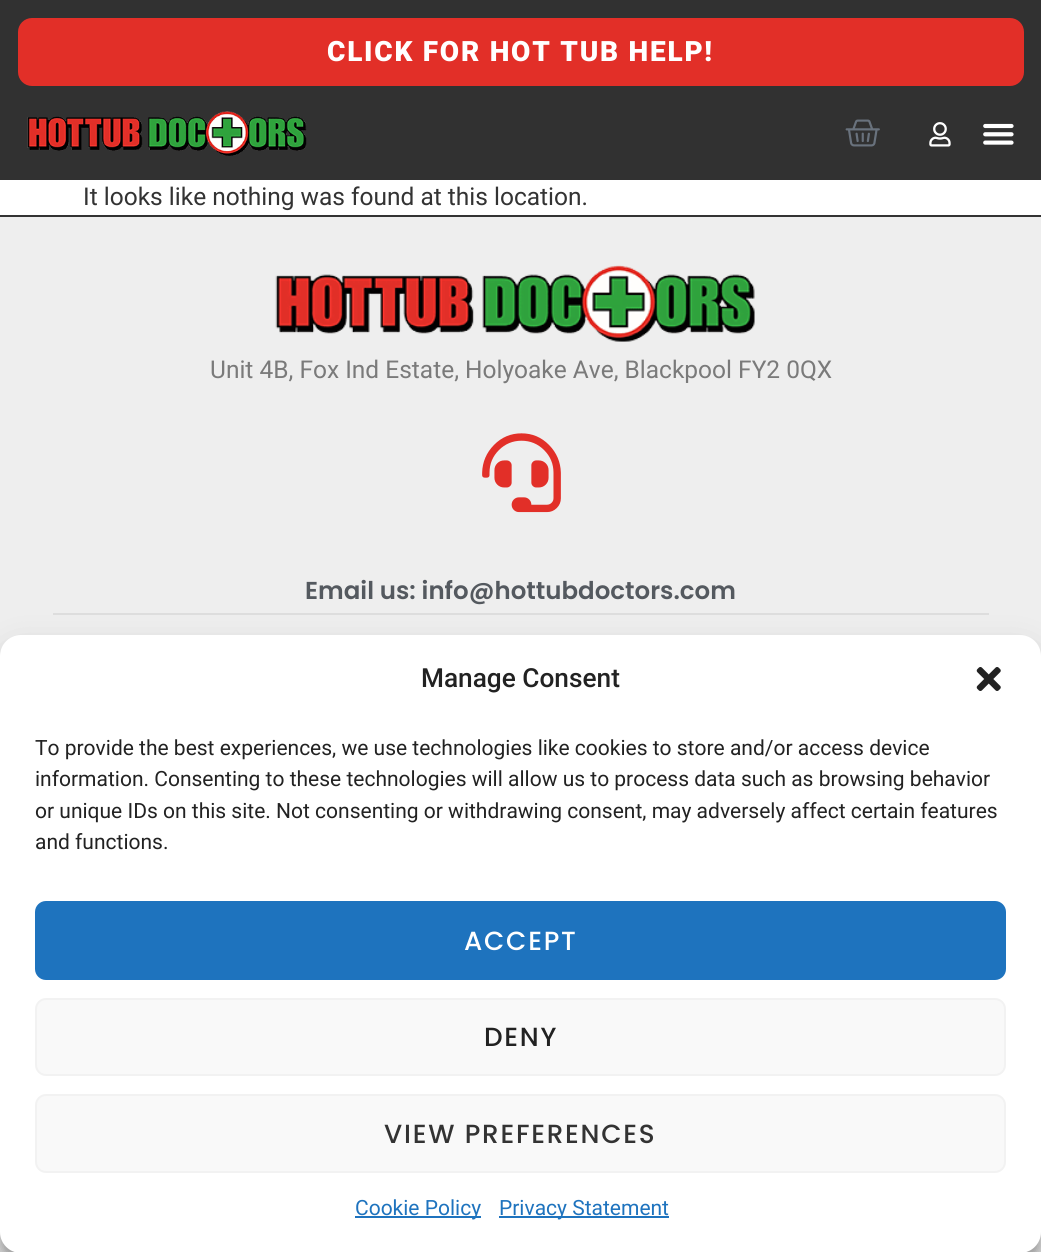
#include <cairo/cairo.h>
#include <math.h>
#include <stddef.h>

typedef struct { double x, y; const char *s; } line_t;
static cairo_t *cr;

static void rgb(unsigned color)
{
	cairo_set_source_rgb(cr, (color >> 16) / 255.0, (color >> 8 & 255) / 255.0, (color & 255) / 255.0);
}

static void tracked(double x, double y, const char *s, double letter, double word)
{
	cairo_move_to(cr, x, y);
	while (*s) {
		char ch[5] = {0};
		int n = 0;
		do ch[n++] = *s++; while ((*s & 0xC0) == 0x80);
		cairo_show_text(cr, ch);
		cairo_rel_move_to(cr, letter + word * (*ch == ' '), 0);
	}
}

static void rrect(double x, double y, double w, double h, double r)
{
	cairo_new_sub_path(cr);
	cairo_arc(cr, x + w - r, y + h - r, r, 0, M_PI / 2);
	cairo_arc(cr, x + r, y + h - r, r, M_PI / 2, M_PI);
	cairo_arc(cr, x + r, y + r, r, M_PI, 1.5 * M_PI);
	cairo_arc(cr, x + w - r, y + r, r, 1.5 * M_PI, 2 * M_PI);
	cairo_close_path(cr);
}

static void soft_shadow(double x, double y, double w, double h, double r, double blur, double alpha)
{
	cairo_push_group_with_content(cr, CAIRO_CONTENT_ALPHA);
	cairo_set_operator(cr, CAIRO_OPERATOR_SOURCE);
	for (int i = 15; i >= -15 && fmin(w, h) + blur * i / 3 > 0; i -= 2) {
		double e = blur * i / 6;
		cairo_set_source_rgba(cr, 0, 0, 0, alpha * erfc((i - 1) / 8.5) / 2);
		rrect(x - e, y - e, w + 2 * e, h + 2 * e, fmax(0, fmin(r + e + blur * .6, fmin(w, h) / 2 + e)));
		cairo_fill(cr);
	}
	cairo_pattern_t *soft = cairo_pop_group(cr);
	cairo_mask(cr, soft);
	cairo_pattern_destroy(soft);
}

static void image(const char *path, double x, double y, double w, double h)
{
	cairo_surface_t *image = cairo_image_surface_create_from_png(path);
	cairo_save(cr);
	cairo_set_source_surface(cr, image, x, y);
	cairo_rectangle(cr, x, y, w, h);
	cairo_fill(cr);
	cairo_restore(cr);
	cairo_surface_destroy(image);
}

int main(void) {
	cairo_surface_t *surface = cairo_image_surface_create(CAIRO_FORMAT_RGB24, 1041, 1252);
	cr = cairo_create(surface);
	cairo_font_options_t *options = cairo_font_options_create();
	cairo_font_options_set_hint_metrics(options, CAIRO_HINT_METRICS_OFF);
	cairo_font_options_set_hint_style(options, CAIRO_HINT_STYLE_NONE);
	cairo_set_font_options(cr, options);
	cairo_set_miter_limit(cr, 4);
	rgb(0xffffff);
	cairo_paint(cr);
	rgb(0x313131);
	cairo_rectangle(cr, 0, 0, 1041, 180);
	cairo_fill(cr);
	rgb(0xe22f28);
	rrect(18, 18, 1006, 68, 14);
	cairo_fill(cr);
	image("img/1.png", 27, 111, 280, 45);
	image("img/2.png", 845, 119, 35, 28);
	image("img/3.png", 929, 122, 22, 25);
	image("img/4.png", 983, 123, 31, 22);
	rgb(0xeeeeee);
	cairo_rectangle(cr, 0, 217, 1041, 1035);
	cairo_fill(cr);
	rgb(0x333333);
	cairo_rectangle(cr, 0, 215, 1041, 2);
	cairo_fill(cr);
	image("img/5.png", 275, 265, 480, 77);
	image("img/6.png", 482, 433, 79, 80);
	rgb(0xdddddd);
	cairo_rectangle(cr, 53, 613, 936, 2);
	cairo_fill(cr);
	rgb(0x000000);
	soft_shadow(0, 646, 1041, 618, 21, 5, 0.23);
	soft_shadow(0, 653, 1041, 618, 21, 17.5, 0.19);
	rgb(0xffffff);
	rrect(0, 635, 1041, 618, 21);
	cairo_fill(cr);
	image("img/7.png", 976, 667, 25, 24);
	rgb(0x1e73be);
	rrect(36, 902, 969, 77, 10);
	cairo_fill_preserve(cr);
	cairo_stroke(cr);
	rgb(0xf9f9f9);
	rrect(36, 999, 969, 76, 10);
	cairo_fill_preserve(cr);
	rgb(0xf2f2f2);
	cairo_stroke(cr);
	rgb(0xf9f9f9);
	rrect(36, 1095, 969, 77, 10);
	cairo_fill_preserve(cr);
	rgb(0xf2f2f2);
	cairo_stroke(cr);
	rgb(0x1e73be);
	cairo_rectangle(cr, 355, 1216, 126, 2);
	cairo_fill(cr);
	cairo_rectangle(cr, 499, 1216, 170, 2);
	cairo_fill(cr);
	cairo_select_font_face(cr, "Roboto Black", CAIRO_FONT_SLANT_NORMAL, CAIRO_FONT_WEIGHT_NORMAL);
	cairo_set_font_size(cr, 28);
	rgb(0xffffff);
	tracked(327, 61, "CLICK FOR HOT TUB HELP!", 1.75, 0);
	cairo_select_font_face(cr, "Roboto", CAIRO_FONT_SLANT_NORMAL, CAIRO_FONT_WEIGHT_NORMAL);
	cairo_set_font_size(cr, 24.5);
	rgb(0x333333);
	cairo_move_to(cr, 83, 205);
	cairo_show_text(cr, "It looks like nothing was found at this location.");
	rgb(0x7a7a7a);
	cairo_move_to(cr, 210, 378);
	cairo_show_text(cr, "Unit 4B, Fox Ind Estate, Holyoake Ave, Blackpool FY2 0QX");
	cairo_select_font_face(cr, "Poppins SemiBold", CAIRO_FONT_SLANT_NORMAL, CAIRO_FONT_WEIGHT_NORMAL);
	rgb(0x54595f);
	cairo_move_to(cr, 305, 599);
	cairo_show_text(cr, "Email us: info@hottubdoctors.com");
	cairo_select_font_face(cr, "Roboto Medium", CAIRO_FONT_SLANT_NORMAL, CAIRO_FONT_WEIGHT_NORMAL);
	cairo_set_font_size(cr, 26.25);
	rgb(0x222222);
	cairo_move_to(cr, 421, 687);
	cairo_show_text(cr, "Manage Consent");
	cairo_select_font_face(cr, "Roboto", CAIRO_FONT_SLANT_NORMAL, CAIRO_FONT_WEIGHT_NORMAL);
	cairo_set_font_size(cr, 21);
	{
		static const line_t items[] = {
			{35, 755, "To provide the best experiences, we use technologies like cookies to store and/or access device"},
			{35, 786, "information. Consenting to these technologies will allow us to process data such as browsing behavior"},
			{35, 818, "or unique IDs on this site. Not consenting or withdrawing consent, may adversely affect certain features"},
			{35, 849, "and functions."},
		};
		for (size_t i = 0; i < sizeof items / sizeof *items; i++) {
			cairo_move_to(cr, items[i].x, items[i].y);
			cairo_show_text(cr, items[i].s);
		}
	}
	cairo_select_font_face(cr, "Poppins Medium", CAIRO_FONT_SLANT_NORMAL, CAIRO_FONT_WEIGHT_NORMAL);
	cairo_set_font_size(cr, 26.25);
	rgb(0xffffff);
	tracked(464, 950, "ACCEPT", 1.75, 0);
	rgb(0x222222);
	tracked(484, 1046, "DENY", 1.75, 0);
	rgb(0x333333);
	tracked(384, 1143, "VIEW PREFERENCES", 1.75, 0);
	cairo_select_font_face(cr, "Roboto", CAIRO_FONT_SLANT_NORMAL, CAIRO_FONT_WEIGHT_NORMAL);
	cairo_set_font_size(cr, 21);
	rgb(0x1e73be);
	cairo_move_to(cr, 355, 1215);
	cairo_show_text(cr, "Cookie Policy");
	cairo_move_to(cr, 499, 1215);
	cairo_show_text(cr, "Privacy Statement");
	cairo_surface_write_to_png(surface, "page.png");
	cairo_font_options_destroy(options);
	cairo_destroy(cr);
	cairo_surface_destroy(surface);
	return 0;
}
